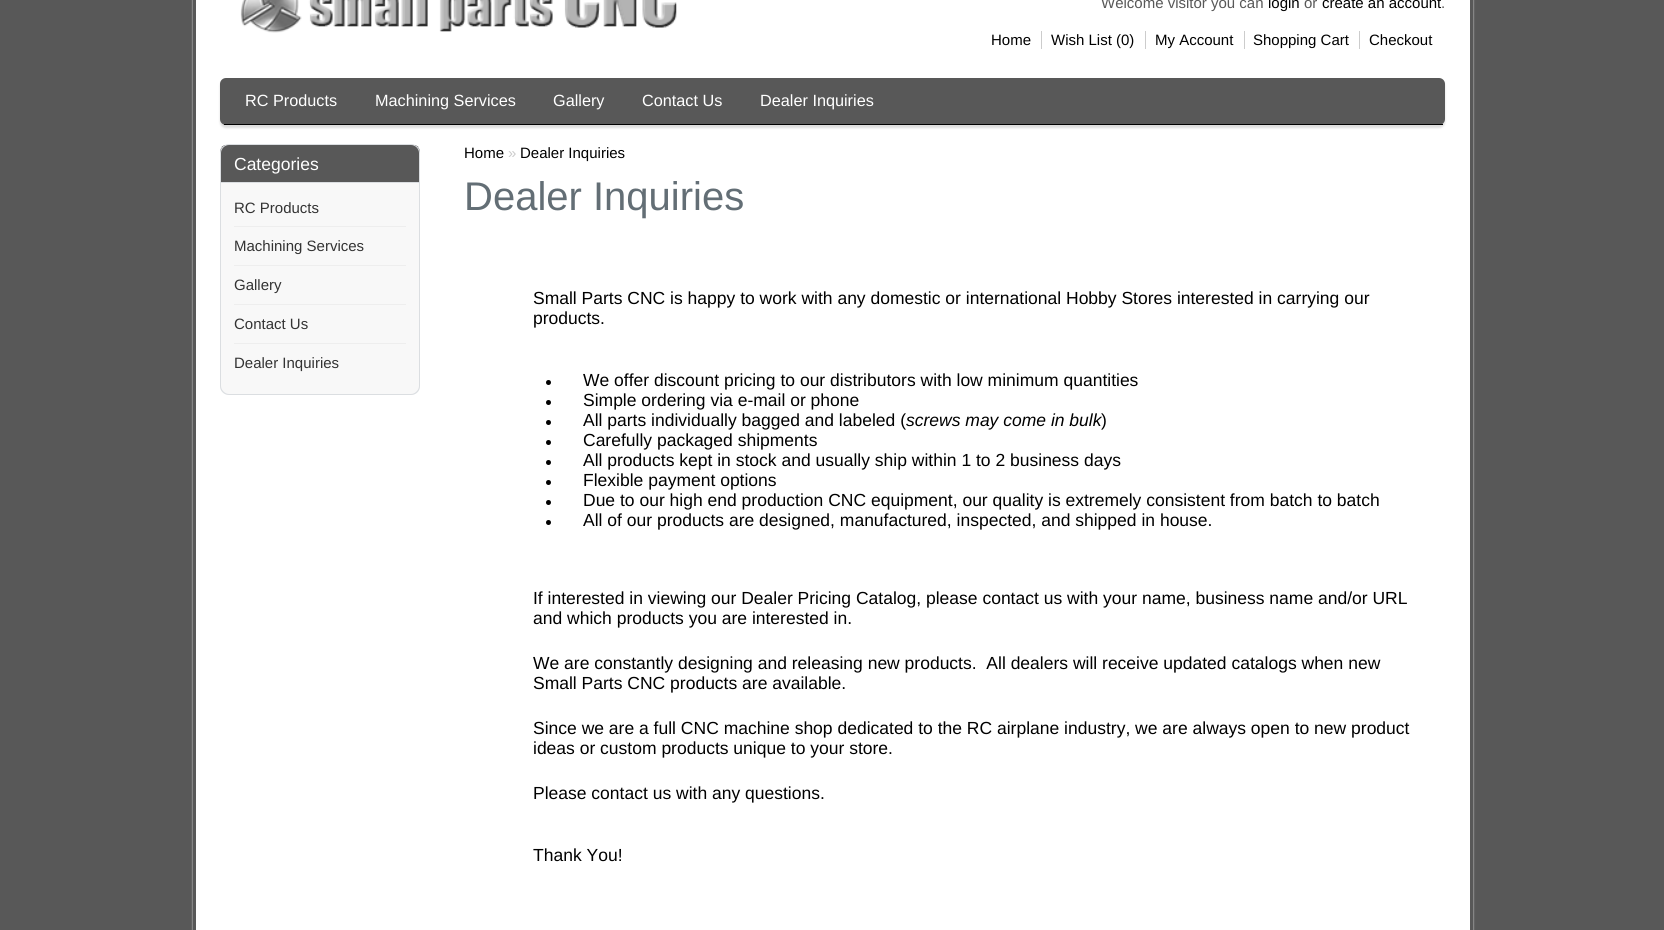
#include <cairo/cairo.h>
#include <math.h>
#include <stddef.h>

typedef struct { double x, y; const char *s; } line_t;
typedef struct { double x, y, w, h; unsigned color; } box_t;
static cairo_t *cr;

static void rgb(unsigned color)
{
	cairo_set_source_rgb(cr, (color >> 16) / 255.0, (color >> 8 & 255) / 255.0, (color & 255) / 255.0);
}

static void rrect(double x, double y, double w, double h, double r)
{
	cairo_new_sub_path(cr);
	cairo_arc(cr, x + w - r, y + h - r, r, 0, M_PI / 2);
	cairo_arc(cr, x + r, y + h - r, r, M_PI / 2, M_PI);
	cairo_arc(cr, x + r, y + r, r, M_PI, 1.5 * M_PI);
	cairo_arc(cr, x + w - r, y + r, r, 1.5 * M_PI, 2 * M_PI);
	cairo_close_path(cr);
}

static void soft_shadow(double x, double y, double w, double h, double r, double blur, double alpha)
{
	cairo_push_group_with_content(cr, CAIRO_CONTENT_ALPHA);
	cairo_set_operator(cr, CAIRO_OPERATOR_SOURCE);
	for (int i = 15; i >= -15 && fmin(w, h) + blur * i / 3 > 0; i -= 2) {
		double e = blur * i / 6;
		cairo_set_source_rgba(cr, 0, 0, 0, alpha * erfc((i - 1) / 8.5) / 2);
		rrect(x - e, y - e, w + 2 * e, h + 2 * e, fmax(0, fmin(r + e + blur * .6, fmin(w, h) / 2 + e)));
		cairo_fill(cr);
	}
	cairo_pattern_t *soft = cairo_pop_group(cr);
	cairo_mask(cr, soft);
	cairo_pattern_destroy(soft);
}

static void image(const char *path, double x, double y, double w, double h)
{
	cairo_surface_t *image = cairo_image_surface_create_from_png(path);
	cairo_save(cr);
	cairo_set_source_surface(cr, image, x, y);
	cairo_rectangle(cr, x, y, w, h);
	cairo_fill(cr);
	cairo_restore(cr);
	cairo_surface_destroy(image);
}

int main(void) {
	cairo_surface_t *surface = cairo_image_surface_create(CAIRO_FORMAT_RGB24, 1664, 930);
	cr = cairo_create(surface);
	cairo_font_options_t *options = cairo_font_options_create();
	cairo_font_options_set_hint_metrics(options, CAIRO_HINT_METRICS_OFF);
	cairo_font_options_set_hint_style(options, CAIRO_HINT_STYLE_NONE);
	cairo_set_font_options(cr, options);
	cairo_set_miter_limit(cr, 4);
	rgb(0x585858);
	cairo_paint(cr);
	rgb(0xdddddd);
	soft_shadow(193, -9, 1280, 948, 6, 1, 1);
	rgb(0xffffff);
	cairo_rectangle(cr, 194.5, -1.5, 1277, 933);
	cairo_fill_preserve(cr);
	rgb(0x585858);
	cairo_set_line_width(cr, 3);
	cairo_stroke(cr);
	image("img/1.png", 240, 0, 437, 33);
	{
		static const box_t items[] = {
			{1041, 31, 1, 18, 0xcccccc},
			{1145, 31, 1, 18, 0xcccccc},
			{1244, 31, 1, 18, 0xcccccc},
			{1359, 31, 1, 18, 0xcccccc},
		};
		for (size_t i = 0; i < sizeof items / sizeof *items; i++) {
			rgb(items[i].color);
			cairo_rectangle(cr, items[i].x, items[i].y, items[i].w, items[i].h);
			cairo_fill(cr);
		}
	}
	rgb(0xdddddd);
	soft_shadow(220, 80, 1225, 48, 6, 1, 1);
	rgb(0x585858);
	rrect(220, 78, 1225, 47, 6);
	cairo_fill(cr);
	rgb(0x000000);
	cairo_rectangle(cr, 224, 124, 1219, 1);
	cairo_fill(cr);
	image("img/2.png", 220, 145, 200, 37);
	cairo_new_path(cr);
	cairo_move_to(cr, 229, 144.5);
	cairo_line_to(cr, 411, 144.5);
	cairo_curve_to(cr, 415.5, 144.5, 419.5, 148.5, 419.5, 153);
	cairo_line_to(cr, 419.5, 182.5);
	cairo_line_to(cr, 220.5, 182.5);
	cairo_line_to(cr, 220.5, 153);
	cairo_curve_to(cr, 220.5, 148.5, 224.5, 144.5, 229, 144.5);
	cairo_close_path(cr);
	rgb(0xdbdee1);
	cairo_set_line_width(cr, 1);
	cairo_stroke(cr);
	rgb(0xf8f8f8);
	cairo_new_path(cr);
	cairo_move_to(cr, 220, 183);
	cairo_line_to(cr, 420, 183);
	cairo_line_to(cr, 420, 386);
	cairo_curve_to(cr, 420, 391, 416, 395, 411, 395);
	cairo_line_to(cr, 229, 395);
	cairo_curve_to(cr, 224, 395, 220, 391, 220, 386);
	cairo_close_path(cr);
	cairo_fill(cr);
	rgb(0xdbdee1);
	cairo_set_fill_rule(cr, CAIRO_FILL_RULE_EVEN_ODD);
	cairo_new_path(cr);
	cairo_move_to(cr, 220, 182);
	cairo_line_to(cr, 420, 182);
	cairo_line_to(cr, 420, 386);
	cairo_curve_to(cr, 420, 391, 416, 395, 411, 395);
	cairo_line_to(cr, 229, 395);
	cairo_curve_to(cr, 224, 395, 220, 391, 220, 386);
	cairo_close_path(cr);
	cairo_move_to(cr, 221, 182);
	cairo_line_to(cr, 419, 182);
	cairo_line_to(cr, 419, 386);
	cairo_curve_to(cr, 419, 390, 415, 394, 411, 394);
	cairo_line_to(cr, 229, 394);
	cairo_curve_to(cr, 225, 394, 221, 390, 221, 386);
	cairo_close_path(cr);
	cairo_fill(cr);
	{
		static const box_t items[] = {
			{234, 226, 172, 1, 0xeeeeee},
			{234, 265, 172, 1, 0xeeeeee},
			{234, 304, 172, 1, 0xeeeeee},
			{234, 343, 172, 1, 0xeeeeee},
		};
		for (size_t i = 0; i < sizeof items / sizeof *items; i++) {
			rgb(items[i].color);
			cairo_rectangle(cr, items[i].x, items[i].y, items[i].w, items[i].h);
			cairo_fill(cr);
		}
	}
	rgb(0x000000);
	cairo_arc(cr, 548.5, 382.5, 2.5, 0, 2 * M_PI);
	cairo_fill(cr);
	cairo_arc(cr, 548.5, 402.5, 2.5, 0, 2 * M_PI);
	cairo_fill(cr);
	cairo_arc(cr, 548.5, 422.5, 2.5, 0, 2 * M_PI);
	cairo_fill(cr);
	cairo_arc(cr, 548.5, 442.5, 2.5, 0, 2 * M_PI);
	cairo_fill(cr);
	cairo_arc(cr, 548.5, 462.5, 2.5, 0, 2 * M_PI);
	cairo_fill(cr);
	cairo_arc(cr, 548.5, 482.5, 2.5, 0, 2 * M_PI);
	cairo_fill(cr);
	cairo_arc(cr, 548.5, 502.5, 2.5, 0, 2 * M_PI);
	cairo_fill(cr);
	cairo_arc(cr, 548.5, 522.5, 2.5, 0, 2 * M_PI);
	cairo_fill(cr);
	cairo_select_font_face(cr, "Liberation Sans", CAIRO_FONT_SLANT_NORMAL, CAIRO_FONT_WEIGHT_NORMAL);
	cairo_set_font_size(cr, 15);
	rgb(0x585858);
	cairo_move_to(cr, 1101, 8);
	cairo_show_text(cr, "Welcome visitor you can");
	rgb(0x000000);
	cairo_move_to(cr, 1268, 8);
	cairo_show_text(cr, "login");
	rgb(0x585858);
	cairo_move_to(cr, 1304, 8);
	cairo_show_text(cr, "or");
	rgb(0x000000);
	cairo_move_to(cr, 1322, 8);
	cairo_show_text(cr, "create an account");
	rgb(0x585858);
	cairo_move_to(cr, 1441, 8);
	cairo_show_text(cr, ".");
	rgb(0x000000);
	{
		static const line_t items[] = {
			{991, 45, "Home"},
			{1051, 45, "Wish List (0)"},
			{1155, 45, "My Account"},
			{1253, 45, "Shopping Cart"},
			{1369, 45, "Checkout"},
		};
		for (size_t i = 0; i < sizeof items / sizeof *items; i++) {
			cairo_move_to(cr, items[i].x, items[i].y);
			cairo_show_text(cr, items[i].s);
		}
	}
	cairo_set_font_size(cr, 16.25);
	rgb(0xffffff);
	{
		static const line_t items[] = {
			{245, 106, "RC Products"},
			{375, 106, "Machining Services"},
			{553, 106, "Gallery"},
			{642, 106, "Contact Us"},
			{760, 106, "Dealer Inquiries"},
		};
		for (size_t i = 0; i < sizeof items / sizeof *items; i++) {
			cairo_move_to(cr, items[i].x, items[i].y);
			cairo_show_text(cr, items[i].s);
		}
	}
	cairo_set_font_size(cr, 17.5);
	cairo_move_to(cr, 234, 170);
	cairo_show_text(cr, "Categories");
	cairo_set_font_size(cr, 15);
	rgb(0x333333);
	{
		static const line_t items[] = {
			{234, 213, "RC Products"},
			{234, 251, "Machining Services"},
			{234, 290, "Gallery"},
			{234, 329, "Contact Us"},
			{234, 368, "Dealer Inquiries"},
		};
		for (size_t i = 0; i < sizeof items / sizeof *items; i++) {
			cairo_move_to(cr, items[i].x, items[i].y);
			cairo_show_text(cr, items[i].s);
		}
	}
	rgb(0x000000);
	cairo_move_to(cr, 464, 158);
	cairo_show_text(cr, "Home");
	rgb(0xcccccc);
	cairo_move_to(cr, 508, 158);
	cairo_show_text(cr, "»");
	rgb(0x000000);
	cairo_move_to(cr, 520, 158);
	cairo_show_text(cr, "Dealer Inquiries");
	cairo_set_font_size(cr, 40);
	rgb(0x636e75);
	cairo_move_to(cr, 464, 210);
	cairo_show_text(cr, "Dealer Inquiries");
	cairo_set_font_size(cr, 17.5);
	rgb(0x000000);
	{
		static const line_t items[] = {
			{533, 304, "Small Parts CNC is happy to work with any domestic or international Hobby Stores interested in carrying our"},
			{533, 324, "products."},
			{583, 386, "We offer discount pricing to our distributors with low minimum quantities"},
			{583, 406, "Simple ordering via e-mail or phone"},
			{583, 426, "All parts individually bagged and labeled ("},
		};
		for (size_t i = 0; i < sizeof items / sizeof *items; i++) {
			cairo_move_to(cr, items[i].x, items[i].y);
			cairo_show_text(cr, items[i].s);
		}
	}
	cairo_select_font_face(cr, "Liberation Sans", CAIRO_FONT_SLANT_ITALIC, CAIRO_FONT_WEIGHT_NORMAL);
	cairo_move_to(cr, 906, 426);
	cairo_show_text(cr, "screws may come in bulk");
	cairo_select_font_face(cr, "Liberation Sans", CAIRO_FONT_SLANT_NORMAL, CAIRO_FONT_WEIGHT_NORMAL);
	{
		static const line_t items[] = {
			{1101, 426, ")"},
			{583, 446, "Carefully packaged shipments"},
			{583, 466, "All products kept in stock and usually ship within 1 to 2 business days"},
			{583, 486, "Flexible payment options"},
			{583, 506, "Due to our high end production CNC equipment, our quality is extremely consistent from batch to batch"},
			{583, 526, "All of our products are designed, manufactured, inspected, and shipped in house."},
			{533, 604, "If interested in viewing our Dealer Pricing Catalog, please contact us with your name, business name and/or URL"},
			{533, 624, "and which products you are interested in."},
			{533, 669, "We are constantly designing and releasing new products.  All dealers will receive updated catalogs when new"},
			{533, 689, "Small Parts CNC products are available."},
			{533, 734, "Since we are a full CNC machine shop dedicated to the RC airplane industry, we are always open to new product"},
			{533, 754, "ideas or custom products unique to your store."},
			{533, 799, "Please contact us with any questions."},
			{533, 861, "Thank You!"},
		};
		for (size_t i = 0; i < sizeof items / sizeof *items; i++) {
			cairo_move_to(cr, items[i].x, items[i].y);
			cairo_show_text(cr, items[i].s);
		}
	}
	cairo_surface_write_to_png(surface, "page.png");
	cairo_font_options_destroy(options);
	cairo_destroy(cr);
	cairo_surface_destroy(surface);
	return 0;
}
